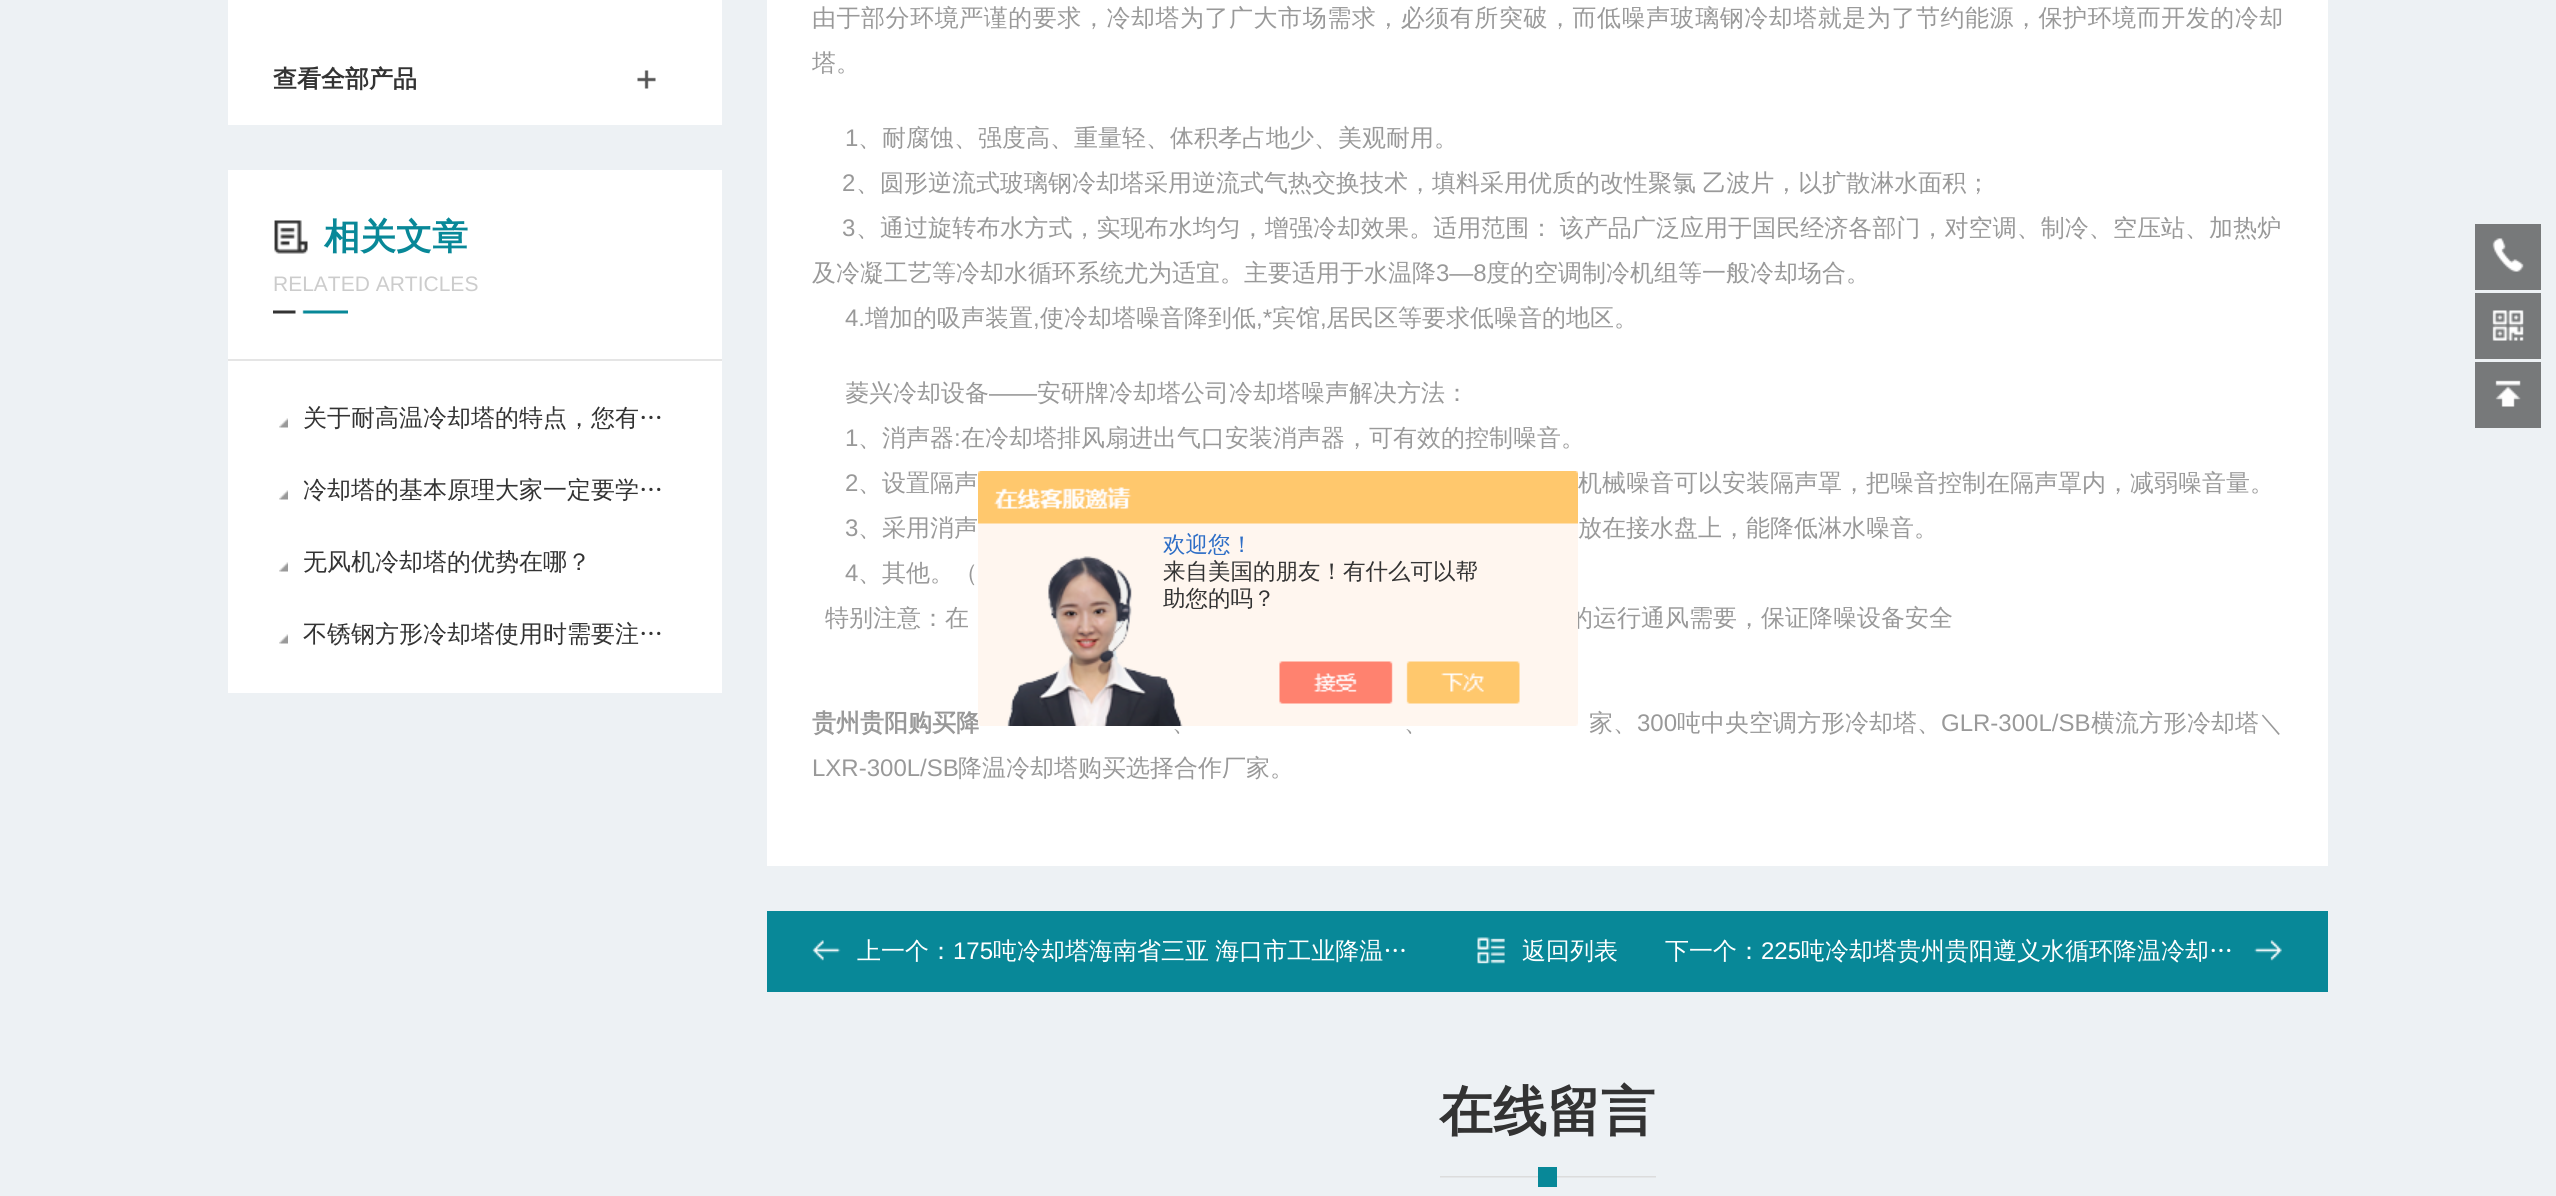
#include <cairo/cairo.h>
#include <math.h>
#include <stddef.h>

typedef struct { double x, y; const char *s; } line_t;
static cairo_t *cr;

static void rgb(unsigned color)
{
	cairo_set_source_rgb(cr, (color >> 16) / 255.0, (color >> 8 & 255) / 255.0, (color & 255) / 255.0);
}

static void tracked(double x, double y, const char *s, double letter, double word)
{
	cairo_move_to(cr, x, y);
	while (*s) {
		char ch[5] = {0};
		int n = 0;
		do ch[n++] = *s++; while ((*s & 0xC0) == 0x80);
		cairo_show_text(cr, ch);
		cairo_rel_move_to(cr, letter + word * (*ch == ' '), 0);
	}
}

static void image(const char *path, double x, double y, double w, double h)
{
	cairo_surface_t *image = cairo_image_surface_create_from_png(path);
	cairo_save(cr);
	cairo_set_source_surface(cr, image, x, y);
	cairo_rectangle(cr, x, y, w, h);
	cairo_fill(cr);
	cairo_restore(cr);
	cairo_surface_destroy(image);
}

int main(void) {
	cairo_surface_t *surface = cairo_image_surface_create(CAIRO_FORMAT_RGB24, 2556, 1196);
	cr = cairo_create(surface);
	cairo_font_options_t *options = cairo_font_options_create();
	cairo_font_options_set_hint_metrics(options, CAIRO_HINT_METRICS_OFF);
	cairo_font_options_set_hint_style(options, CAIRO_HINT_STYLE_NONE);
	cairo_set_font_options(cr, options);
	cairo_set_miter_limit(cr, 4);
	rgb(0xedf1f4);
	cairo_paint(cr);
	rgb(0xffffff);
	cairo_rectangle(cr, 228, 0, 494, 125);
	cairo_fill(cr);
	image("img/1.png", 637, 70, 19, 19);
	cairo_rectangle(cr, 228, 170, 494, 523);
	cairo_fill(cr);
	rgb(0xe5e5e5);
	cairo_rectangle(cr, 228, 359, 494, 2);
	cairo_fill(cr);
	image("img/2.png", 274, 220, 34, 34);
	image("img/3.png", 273, 310, 75, 4);
	image("img/4.png", 279, 418, 9, 10);
	image("img/4.png", 279, 490, 9, 10);
	image("img/4.png", 279, 562, 9, 10);
	image("img/4.png", 279, 634, 9, 10);
	rgb(0xffffff);
	cairo_rectangle(cr, 767, 0, 1561, 866);
	cairo_fill(cr);
	rgb(0x088898);
	cairo_rectangle(cr, 767, 911, 1561, 81);
	cairo_fill(cr);
	image("img/5.png", 812, 940, 29, 21);
	image("img/6.png", 1477, 937, 28, 27);
	image("img/7.png", 2254, 940, 28, 21);
	image("img/8.png", 1440, 1176, 216, 2);
	cairo_rectangle(cr, 1538, 1167, 19, 20);
	cairo_fill(cr);
	rgb(0x77797a);
	cairo_rectangle(cr, 2475, 224, 66, 66);
	cairo_fill(cr);
	image("img/9.png", 2492, 238, 32, 34);
	cairo_rectangle(cr, 2475, 293, 66, 66);
	cairo_fill(cr);
	image("img/10.png", 2492, 310, 32, 31);
	cairo_rectangle(cr, 2475, 362, 66, 66);
	cairo_fill(cr);
	image("img/11.png", 2495, 380, 26, 27);
	cairo_select_font_face(cr, "WenQuanYi Zen Hei", CAIRO_FONT_SLANT_NORMAL, CAIRO_FONT_WEIGHT_BOLD);
	cairo_set_font_size(cr, 24);
	rgb(0x333333);
	cairo_move_to(cr, 273, 87);
	cairo_show_text(cr, "查看全部产品");
	cairo_set_font_size(cr, 36);
	rgb(0x088898);
	cairo_move_to(cr, 324, 249);
	cairo_show_text(cr, "相关文章");
	cairo_select_font_face(cr, "Liberation Sans", CAIRO_FONT_SLANT_NORMAL, CAIRO_FONT_WEIGHT_NORMAL);
	cairo_set_font_size(cr, 21);
	rgb(0xcccccc);
	cairo_move_to(cr, 273, 291);
	cairo_show_text(cr, "RELATED ARTICLES");
	cairo_select_font_face(cr, "WenQuanYi Zen Hei Medium", CAIRO_FONT_SLANT_NORMAL, CAIRO_FONT_WEIGHT_NORMAL);
	cairo_set_font_size(cr, 24);
	rgb(0x333333);
	{
		static const line_t items[] = {
			{303, 426, "关于耐高温冷却塔的特点，您有…"},
			{303, 498, "冷却塔的基本原理大家一定要学…"},
			{303, 570, "无风机冷却塔的优势在哪？"},
			{303, 642, "不锈钢方形冷却塔使用时需要注…"},
		};
		for (size_t i = 0; i < sizeof items / sizeof *items; i++) {
			cairo_move_to(cr, items[i].x, items[i].y);
			cairo_show_text(cr, items[i].s);
		}
	}
	rgb(0x999999);
	tracked(812, 26, "由于部分环境严谨的要求，冷却塔为了广大市场需求，必须有所突破，而低噪声玻璃钢冷却塔就是为了节约能源，保护环境而开发的冷却", 0.53, 0);
	cairo_save(cr);
	cairo_rectangle(cr, 812, 0, 1471, 821);
	cairo_clip(cr);
	cairo_move_to(cr, 812, 71);
	cairo_show_text(cr, "塔。");
	cairo_restore(cr);
	cairo_select_font_face(cr, "Liberation Sans", CAIRO_FONT_SLANT_NORMAL, CAIRO_FONT_WEIGHT_NORMAL);
	cairo_move_to(cr, 845, 146);
	cairo_show_text(cr, "1");
	cairo_select_font_face(cr, "WenQuanYi Zen Hei Medium", CAIRO_FONT_SLANT_NORMAL, CAIRO_FONT_WEIGHT_NORMAL);
	cairo_move_to(cr, 858, 146);
	cairo_show_text(cr, "、耐腐蚀、强度高、重量轻、体积孝占地少、美观耐用。");
	cairo_select_font_face(cr, "Liberation Sans", CAIRO_FONT_SLANT_NORMAL, CAIRO_FONT_WEIGHT_NORMAL);
	cairo_move_to(cr, 842, 191);
	cairo_show_text(cr, "2");
	cairo_select_font_face(cr, "WenQuanYi Zen Hei Medium", CAIRO_FONT_SLANT_NORMAL, CAIRO_FONT_WEIGHT_NORMAL);
	tracked(856, 191, "、圆形逆流式玻璃钢冷却塔采用逆流式气热交换技术，填料采用优质的改性聚氯 乙波片，以扩散淋水面积；", 0, -1);
	cairo_select_font_face(cr, "Liberation Sans", CAIRO_FONT_SLANT_NORMAL, CAIRO_FONT_WEIGHT_NORMAL);
	tracked(842, 236, "3", 0.05, 0);
	cairo_select_font_face(cr, "WenQuanYi Zen Hei Medium", CAIRO_FONT_SLANT_NORMAL, CAIRO_FONT_WEIGHT_NORMAL);
	tracked(856, 236, "、通过旋转布水方式，实现布水均匀，增强冷却效果。适用范围： 该产品广泛应用于国民经济各部门，对空调、制冷、空压站、加热炉", 0.05, -1);
	cairo_move_to(cr, 812, 281);
	cairo_show_text(cr, "及冷凝工艺等冷却水循环系统尤为适宜。主要适用于水温降");
	cairo_select_font_face(cr, "Liberation Sans", CAIRO_FONT_SLANT_NORMAL, CAIRO_FONT_WEIGHT_NORMAL);
	cairo_move_to(cr, 1436, 281);
	cairo_show_text(cr, "3—8");
	cairo_select_font_face(cr, "WenQuanYi Zen Hei Medium", CAIRO_FONT_SLANT_NORMAL, CAIRO_FONT_WEIGHT_NORMAL);
	cairo_move_to(cr, 1486, 281);
	cairo_show_text(cr, "度的空调制冷机组等一般冷却场合。");
	cairo_select_font_face(cr, "Liberation Sans", CAIRO_FONT_SLANT_NORMAL, CAIRO_FONT_WEIGHT_NORMAL);
	cairo_move_to(cr, 845, 326);
	cairo_show_text(cr, "4.");
	cairo_select_font_face(cr, "WenQuanYi Zen Hei Medium", CAIRO_FONT_SLANT_NORMAL, CAIRO_FONT_WEIGHT_NORMAL);
	cairo_move_to(cr, 865, 326);
	cairo_show_text(cr, "增加的吸声装置");
	cairo_select_font_face(cr, "Liberation Sans", CAIRO_FONT_SLANT_NORMAL, CAIRO_FONT_WEIGHT_NORMAL);
	cairo_move_to(cr, 1033, 326);
	cairo_show_text(cr, ",");
	cairo_select_font_face(cr, "WenQuanYi Zen Hei Medium", CAIRO_FONT_SLANT_NORMAL, CAIRO_FONT_WEIGHT_NORMAL);
	cairo_move_to(cr, 1040, 326);
	cairo_show_text(cr, "使冷却塔噪音降到低");
	cairo_select_font_face(cr, "Liberation Sans", CAIRO_FONT_SLANT_NORMAL, CAIRO_FONT_WEIGHT_NORMAL);
	cairo_move_to(cr, 1256, 326);
	cairo_show_text(cr, ",*");
	cairo_select_font_face(cr, "WenQuanYi Zen Hei Medium", CAIRO_FONT_SLANT_NORMAL, CAIRO_FONT_WEIGHT_NORMAL);
	cairo_move_to(cr, 1272, 326);
	cairo_show_text(cr, "宾馆");
	cairo_select_font_face(cr, "Liberation Sans", CAIRO_FONT_SLANT_NORMAL, CAIRO_FONT_WEIGHT_NORMAL);
	cairo_move_to(cr, 1320, 326);
	cairo_show_text(cr, ",");
	cairo_select_font_face(cr, "WenQuanYi Zen Hei Medium", CAIRO_FONT_SLANT_NORMAL, CAIRO_FONT_WEIGHT_NORMAL);
	cairo_move_to(cr, 1326, 326);
	cairo_show_text(cr, "居民区等要求低噪音的地区。");
	cairo_move_to(cr, 845, 401);
	cairo_show_text(cr, "菱兴冷却设备");
	cairo_select_font_face(cr, "Liberation Sans", CAIRO_FONT_SLANT_NORMAL, CAIRO_FONT_WEIGHT_NORMAL);
	cairo_move_to(cr, 989, 401);
	cairo_show_text(cr, "——");
	cairo_select_font_face(cr, "WenQuanYi Zen Hei Medium", CAIRO_FONT_SLANT_NORMAL, CAIRO_FONT_WEIGHT_NORMAL);
	cairo_move_to(cr, 1037, 401);
	cairo_show_text(cr, "安研牌冷却塔公司冷却塔噪声解决方法：");
	cairo_select_font_face(cr, "Liberation Sans", CAIRO_FONT_SLANT_NORMAL, CAIRO_FONT_WEIGHT_NORMAL);
	cairo_move_to(cr, 845, 446);
	cairo_show_text(cr, "1");
	cairo_select_font_face(cr, "WenQuanYi Zen Hei Medium", CAIRO_FONT_SLANT_NORMAL, CAIRO_FONT_WEIGHT_NORMAL);
	cairo_move_to(cr, 858, 446);
	cairo_show_text(cr, "、消声器");
	cairo_select_font_face(cr, "Liberation Sans", CAIRO_FONT_SLANT_NORMAL, CAIRO_FONT_WEIGHT_NORMAL);
	cairo_move_to(cr, 954, 446);
	cairo_show_text(cr, ":");
	cairo_select_font_face(cr, "WenQuanYi Zen Hei Medium", CAIRO_FONT_SLANT_NORMAL, CAIRO_FONT_WEIGHT_NORMAL);
	cairo_move_to(cr, 961, 446);
	cairo_show_text(cr, "在冷却塔排风扇进出气口安装消声器，可有效的控制噪音。");
	cairo_select_font_face(cr, "Liberation Sans", CAIRO_FONT_SLANT_NORMAL, CAIRO_FONT_WEIGHT_NORMAL);
	cairo_move_to(cr, 845, 491);
	cairo_show_text(cr, "2");
	cairo_select_font_face(cr, "WenQuanYi Zen Hei Medium", CAIRO_FONT_SLANT_NORMAL, CAIRO_FONT_WEIGHT_NORMAL);
	cairo_move_to(cr, 858, 491);
	cairo_show_text(cr, "、设置隔声");
	cairo_move_to(cr, 1578, 491);
	cairo_show_text(cr, "机械噪音可以安装隔声罩，把噪音控制在隔声罩内，减弱噪音量。");
	cairo_select_font_face(cr, "Liberation Sans", CAIRO_FONT_SLANT_NORMAL, CAIRO_FONT_WEIGHT_NORMAL);
	cairo_move_to(cr, 845, 536);
	cairo_show_text(cr, "3");
	cairo_select_font_face(cr, "WenQuanYi Zen Hei Medium", CAIRO_FONT_SLANT_NORMAL, CAIRO_FONT_WEIGHT_NORMAL);
	cairo_move_to(cr, 858, 536);
	cairo_show_text(cr, "、采用消声");
	cairo_move_to(cr, 1578, 536);
	cairo_show_text(cr, "放在接水盘上，能降低淋水噪音。");
	cairo_select_font_face(cr, "Liberation Sans", CAIRO_FONT_SLANT_NORMAL, CAIRO_FONT_WEIGHT_NORMAL);
	cairo_move_to(cr, 845, 581);
	cairo_show_text(cr, "4");
	cairo_select_font_face(cr, "WenQuanYi Zen Hei Medium", CAIRO_FONT_SLANT_NORMAL, CAIRO_FONT_WEIGHT_NORMAL);
	{
		static const line_t items[] = {
			{858, 581, "、其他。（"},
			{825, 626, "特别注意：在"},
			{1569, 626, "的运行通风需要，保证降噪设备安全"},
		};
		for (size_t i = 0; i < sizeof items / sizeof *items; i++) {
			cairo_move_to(cr, items[i].x, items[i].y);
			cairo_show_text(cr, items[i].s);
		}
	}
	cairo_select_font_face(cr, "WenQuanYi Zen Hei", CAIRO_FONT_SLANT_NORMAL, CAIRO_FONT_WEIGHT_BOLD);
	cairo_move_to(cr, 812, 731);
	cairo_show_text(cr, "贵州贵阳购买降");
	cairo_select_font_face(cr, "WenQuanYi Zen Hei Medium", CAIRO_FONT_SLANT_NORMAL, CAIRO_FONT_WEIGHT_NORMAL);
	{
		static const line_t items[] = {
			{1172, 731, "、"},
			{1404, 731, "、"},
			{1589, 731, "家、"},
		};
		for (size_t i = 0; i < sizeof items / sizeof *items; i++) {
			cairo_move_to(cr, items[i].x, items[i].y);
			cairo_show_text(cr, items[i].s);
		}
	}
	cairo_select_font_face(cr, "Liberation Sans", CAIRO_FONT_SLANT_NORMAL, CAIRO_FONT_WEIGHT_NORMAL);
	cairo_move_to(cr, 1637, 731);
	cairo_show_text(cr, "300");
	cairo_select_font_face(cr, "WenQuanYi Zen Hei Medium", CAIRO_FONT_SLANT_NORMAL, CAIRO_FONT_WEIGHT_NORMAL);
	cairo_move_to(cr, 1677, 731);
	cairo_show_text(cr, "吨中央空调方形冷却塔、");
	cairo_select_font_face(cr, "Liberation Sans", CAIRO_FONT_SLANT_NORMAL, CAIRO_FONT_WEIGHT_NORMAL);
	cairo_move_to(cr, 1941, 731);
	cairo_show_text(cr, "GLR-300L/SB");
	cairo_select_font_face(cr, "WenQuanYi Zen Hei Medium", CAIRO_FONT_SLANT_NORMAL, CAIRO_FONT_WEIGHT_NORMAL);
	cairo_move_to(cr, 2091, 731);
	cairo_show_text(cr, "横流方形冷却塔＼");
	cairo_select_font_face(cr, "Liberation Sans", CAIRO_FONT_SLANT_NORMAL, CAIRO_FONT_WEIGHT_NORMAL);
	cairo_move_to(cr, 812, 776);
	cairo_show_text(cr, "LXR-300L/SB");
	cairo_select_font_face(cr, "WenQuanYi Zen Hei Medium", CAIRO_FONT_SLANT_NORMAL, CAIRO_FONT_WEIGHT_NORMAL);
	cairo_move_to(cr, 958, 776);
	cairo_show_text(cr, "降温冷却塔购买选择合作厂家。");
	rgb(0xffffff);
	cairo_move_to(cr, 857, 959);
	cairo_show_text(cr, "上一个：");
	cairo_select_font_face(cr, "Liberation Sans", CAIRO_FONT_SLANT_NORMAL, CAIRO_FONT_WEIGHT_NORMAL);
	cairo_move_to(cr, 953, 959);
	cairo_show_text(cr, "175");
	cairo_select_font_face(cr, "WenQuanYi Zen Hei Medium", CAIRO_FONT_SLANT_NORMAL, CAIRO_FONT_WEIGHT_NORMAL);
	tracked(993, 959, "吨冷却塔海南省三亚 海口市工业降温…", 0, -1);
	cairo_move_to(cr, 1522, 959);
	cairo_show_text(cr, "返回列表");
	cairo_move_to(cr, 1665, 959);
	cairo_show_text(cr, "下一个：");
	cairo_select_font_face(cr, "Liberation Sans", CAIRO_FONT_SLANT_NORMAL, CAIRO_FONT_WEIGHT_NORMAL);
	cairo_move_to(cr, 1761, 959);
	cairo_show_text(cr, "225");
	cairo_select_font_face(cr, "WenQuanYi Zen Hei Medium", CAIRO_FONT_SLANT_NORMAL, CAIRO_FONT_WEIGHT_NORMAL);
	cairo_move_to(cr, 1801, 959);
	cairo_show_text(cr, "吨冷却塔贵州贵阳遵义水循环降温冷却…");
	cairo_select_font_face(cr, "WenQuanYi Zen Hei", CAIRO_FONT_SLANT_NORMAL, CAIRO_FONT_WEIGHT_BOLD);
	cairo_set_font_size(cr, 54);
	rgb(0x333333);
	cairo_move_to(cr, 1439, 1130);
	cairo_show_text(cr, "在线留言");
	image("img/12.png", 978, 471, 600, 255);
	cairo_select_font_face(cr, "WenQuanYi Zen Hei Medium", CAIRO_FONT_SLANT_NORMAL, CAIRO_FONT_WEIGHT_NORMAL);
	cairo_set_font_size(cr, 22.5);
	rgb(0x2e6ec6);
	cairo_move_to(cr, 1163, 552);
	cairo_show_text(cr, "欢迎您！");
	rgb(0x333333);
	cairo_move_to(cr, 1163, 579);
	cairo_show_text(cr, "来自美国的朋友！有什么可以帮");
	cairo_move_to(cr, 1163, 606);
	cairo_show_text(cr, "助您的吗？");
	cairo_surface_write_to_png(surface, "page.png");
	cairo_font_options_destroy(options);
	cairo_destroy(cr);
	cairo_surface_destroy(surface);
	return 0;
}
